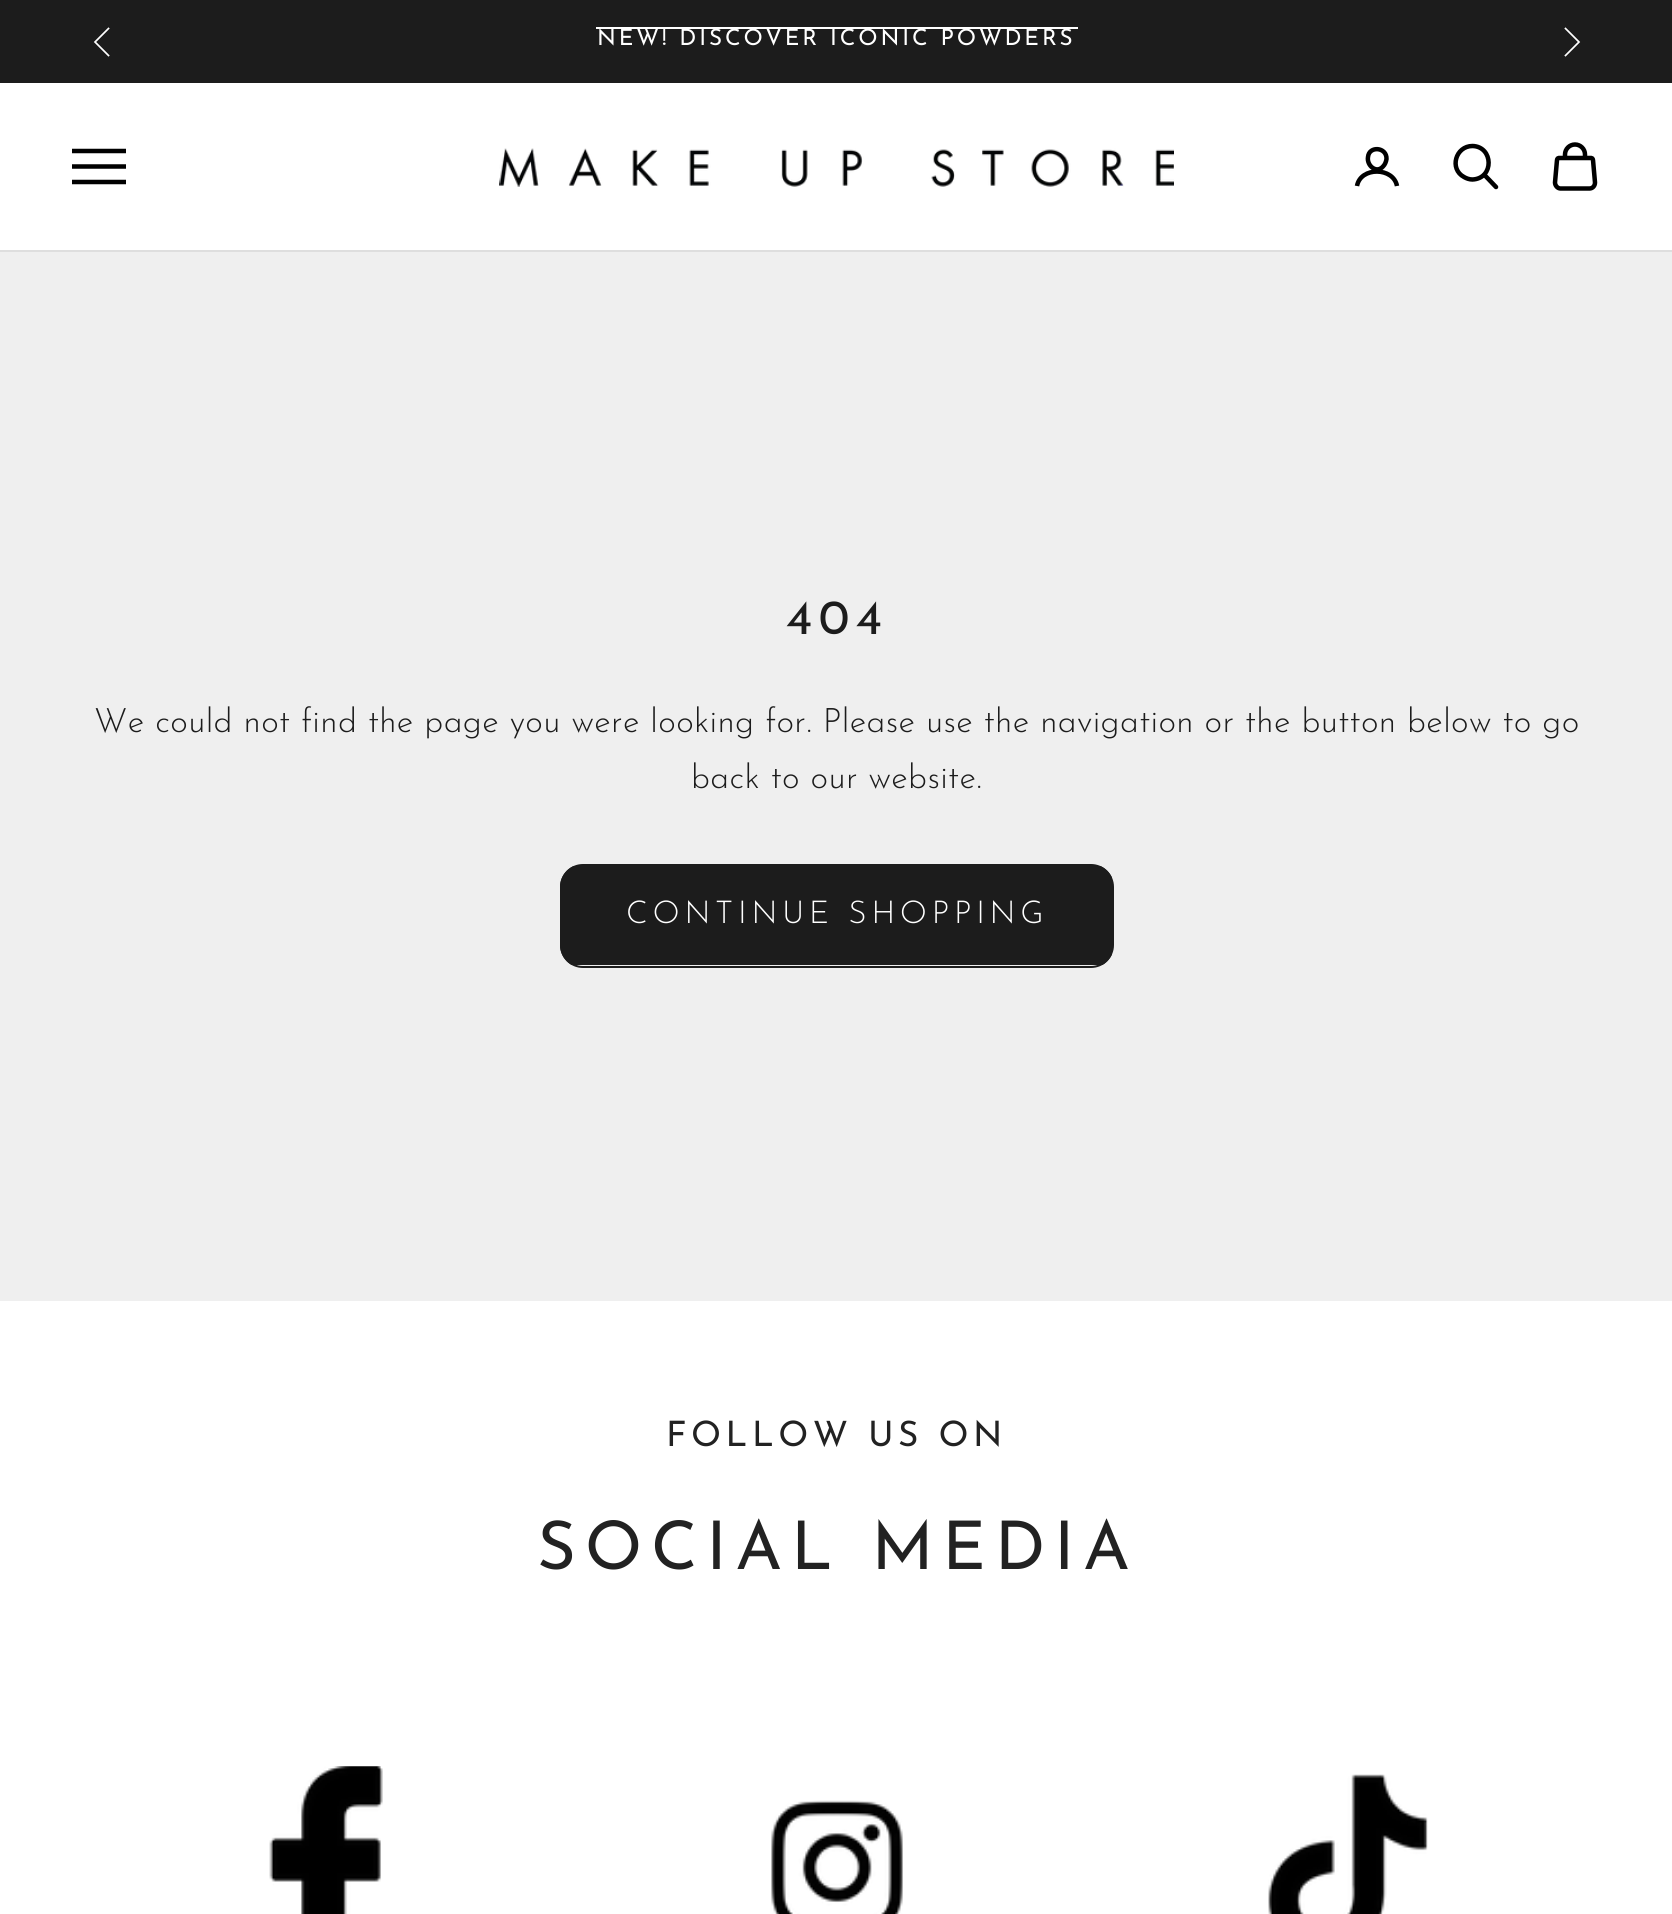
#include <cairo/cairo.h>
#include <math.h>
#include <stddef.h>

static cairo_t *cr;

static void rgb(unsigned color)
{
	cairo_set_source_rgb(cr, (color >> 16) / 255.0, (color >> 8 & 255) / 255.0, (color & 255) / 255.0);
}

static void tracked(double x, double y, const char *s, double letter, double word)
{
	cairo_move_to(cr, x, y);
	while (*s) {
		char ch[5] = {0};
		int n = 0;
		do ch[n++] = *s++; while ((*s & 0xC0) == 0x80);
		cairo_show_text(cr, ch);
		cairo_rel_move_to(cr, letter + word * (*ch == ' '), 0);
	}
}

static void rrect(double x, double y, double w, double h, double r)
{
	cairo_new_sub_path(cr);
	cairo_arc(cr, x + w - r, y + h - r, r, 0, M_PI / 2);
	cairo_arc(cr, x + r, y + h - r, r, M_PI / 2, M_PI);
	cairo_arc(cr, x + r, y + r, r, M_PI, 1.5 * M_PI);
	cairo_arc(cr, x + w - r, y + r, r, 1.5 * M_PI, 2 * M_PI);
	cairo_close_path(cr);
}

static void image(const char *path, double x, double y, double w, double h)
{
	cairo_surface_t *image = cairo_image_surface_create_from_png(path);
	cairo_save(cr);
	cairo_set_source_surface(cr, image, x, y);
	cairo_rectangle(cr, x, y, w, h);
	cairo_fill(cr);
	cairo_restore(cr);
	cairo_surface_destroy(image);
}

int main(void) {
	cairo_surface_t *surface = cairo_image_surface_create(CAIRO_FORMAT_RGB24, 1672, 1914);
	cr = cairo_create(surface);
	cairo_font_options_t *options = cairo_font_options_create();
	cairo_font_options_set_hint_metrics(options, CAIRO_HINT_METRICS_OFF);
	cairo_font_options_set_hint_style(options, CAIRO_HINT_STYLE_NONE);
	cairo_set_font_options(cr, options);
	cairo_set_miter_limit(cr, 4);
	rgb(0xffffff);
	cairo_paint(cr);
	rgb(0x1c1c1c);
	cairo_rectangle(cr, 0, 0, 1672, 83);
	cairo_fill(cr);
	cairo_new_path(cr);
	cairo_move_to(cr, 108.5, 28.5);
	cairo_line_to(cr, 95, 42);
	cairo_line_to(cr, 108.5, 55.5);
	rgb(0xffffff);
	cairo_set_line_width(cr, 1.7);
	cairo_set_line_cap(cr, CAIRO_LINE_CAP_SQUARE);
	cairo_stroke(cr);
	cairo_rectangle(cr, 596, 27, 482, 2);
	cairo_fill(cr);
	cairo_new_path(cr);
	cairo_move_to(cr, 1565.5, 55.5);
	cairo_line_to(cr, 1579, 42);
	cairo_line_to(cr, 1565.5, 28.5);
	cairo_stroke(cr);
	rgb(0xdedede);
	cairo_rectangle(cr, 0, 250, 1672, 2);
	cairo_fill(cr);
	cairo_save(cr);
	cairo_rectangle(cr, 72, 140, 54, 54);
	cairo_clip(cr);
	cairo_new_path(cr);
	cairo_move_to(cr, 74, 182);
	cairo_line_to(cr, 124, 182);
	cairo_move_to(cr, 74, 166.5);
	cairo_line_to(cr, 124, 166.5);
	cairo_move_to(cr, 74, 151);
	cairo_line_to(cr, 124, 151);
	rgb(0x000000);
	cairo_set_line_width(cr, 4.5);
	cairo_stroke(cr);
	cairo_restore(cr);
	image("img/1.png", 499, 148, 675, 39);
	cairo_new_path(cr);
	cairo_move_to(cr, 1386.5, 159);
	cairo_curve_to(cr, 1386, 162, 1385, 164.5, 1383, 166.5);
	cairo_curve_to(cr, 1376.5, 174, 1366.5, 165.5, 1368, 157);
	cairo_curve_to(cr, 1369, 145.5, 1387, 147, 1386.5, 159);
	cairo_close_path(cr);
	rgb(0x000000);
	cairo_set_line_width(cr, 4.5);
	cairo_set_line_cap(cr, CAIRO_LINE_CAP_ROUND);
	cairo_set_line_join(cr, CAIRO_LINE_JOIN_ROUND);
	cairo_stroke(cr);
	cairo_new_path(cr);
	cairo_move_to(cr, 1357, 186);
	cairo_curve_to(cr, 1360.5, 166.5, 1393.5, 167, 1397, 186);
	cairo_set_line_cap(cr, CAIRO_LINE_CAP_BUTT);
	cairo_set_line_join(cr, CAIRO_LINE_JOIN_MITER);
	cairo_stroke(cr);
	cairo_new_path(cr);
	cairo_move_to(cr, 1472.5, 146);
	cairo_curve_to(cr, 1455.5, 146, 1449, 169, 1464, 177);
	cairo_curve_to(cr, 1466.5, 178.5, 1469.5, 179.5, 1472.5, 179.5);
	cairo_curve_to(cr, 1494.5, 178.5, 1493.5, 146.5, 1472.5, 146);
	cairo_close_path(cr);
	cairo_stroke(cr);
	cairo_new_path(cr);
	cairo_move_to(cr, 1484.5, 175);
	cairo_line_to(cr, 1496, 187);
	cairo_set_line_cap(cr, CAIRO_LINE_CAP_ROUND);
	cairo_stroke(cr);
	cairo_new_path(cr);
	cairo_move_to(cr, 1558.5, 158);
	cairo_curve_to(cr, 1558, 158, 1557, 159, 1557, 160);
	cairo_line_to(cr, 1555, 182.5);
	cairo_curve_to(cr, 1555, 185.5, 1557.5, 188.5, 1560.5, 188.5);
	cairo_line_to(cr, 1589.5, 188.5);
	cairo_curve_to(cr, 1592.5, 188.5, 1595, 186, 1595, 182.5);
	cairo_line_to(cr, 1593, 160);
	cairo_curve_to(cr, 1593, 159, 1592, 158, 1591.5, 158);
	cairo_close_path(cr);
	cairo_move_to(cr, 1565, 158);
	cairo_line_to(cr, 1565, 154.5);
	cairo_curve_to(cr, 1565, 149, 1569.5, 144.5, 1575, 144.5);
	cairo_curve_to(cr, 1580.5, 144.5, 1585, 149, 1585, 154.5);
	cairo_line_to(cr, 1585, 158);
	cairo_set_line_join(cr, CAIRO_LINE_JOIN_ROUND);
	cairo_stroke(cr);
	rgb(0xefefef);
	cairo_rectangle(cr, 0, 252, 1672, 1049);
	cairo_fill(cr);
	cairo_save(cr);
	rrect(560, 864, 554, 104, 23);
	cairo_clip(cr);
	rgb(0x1c1c1c);
	cairo_rectangle(cr, 560, 866, 552, 99);
	cairo_fill(cr);
	cairo_restore(cr);
	rrect(561, 865, 552, 102, 22);
	rgb(0x1c1c1c);
	cairo_set_line_width(cr, 2);
	cairo_set_line_cap(cr, CAIRO_LINE_CAP_BUTT);
	cairo_set_line_join(cr, CAIRO_LINE_JOIN_MITER);
	cairo_stroke(cr);
	image("img/2.png", 269, 1766, 114, 148);
	image("img/3.png", 771, 1800, 132, 114);
	image("img/4.png", 1268, 1774, 160, 140);
	cairo_select_font_face(cr, "Josefin Sans", CAIRO_FONT_SLANT_NORMAL, CAIRO_FONT_WEIGHT_NORMAL);
	cairo_set_font_size(cr, 22.5);
	rgb(0xffffff);
	tracked(597, 45, "NEW! DISCOVER ICONIC POWDERS", 2.9, 0);
	cairo_set_font_size(cr, 49);
	rgb(0x1c1c1c);
	tracked(786, 634, "404", 6.5, 0);
	cairo_select_font_face(cr, "Josefin Sans Light", CAIRO_FONT_SLANT_NORMAL, CAIRO_FONT_WEIGHT_NORMAL);
	cairo_set_font_size(cr, 33.75);
	tracked(94, 732, "We could not find the page you were looking for. Please use the navigation or the button below to go", 0.34, 0);
	tracked(691, 788, "back to our website.", 0.34, 0);
	cairo_set_font_size(cr, 31.5);
	rgb(0xffffff);
	tracked(626, 923, "CONTINUE SHOPPING", 4.75, 0);
	cairo_select_font_face(cr, "Josefin Sans", CAIRO_FONT_SLANT_NORMAL, CAIRO_FONT_WEIGHT_NORMAL);
	cairo_set_font_size(cr, 35);
	rgb(0x222222);
	tracked(666, 1446, "FOLLOW US ON", 4.5, 0);
	cairo_set_font_size(cr, 67);
	tracked(537, 1569, "SOCIAL MEDIA", 8.75, 0);
	cairo_surface_write_to_png(surface, "page.png");
	cairo_font_options_destroy(options);
	cairo_destroy(cr);
	cairo_surface_destroy(surface);
	return 0;
}
